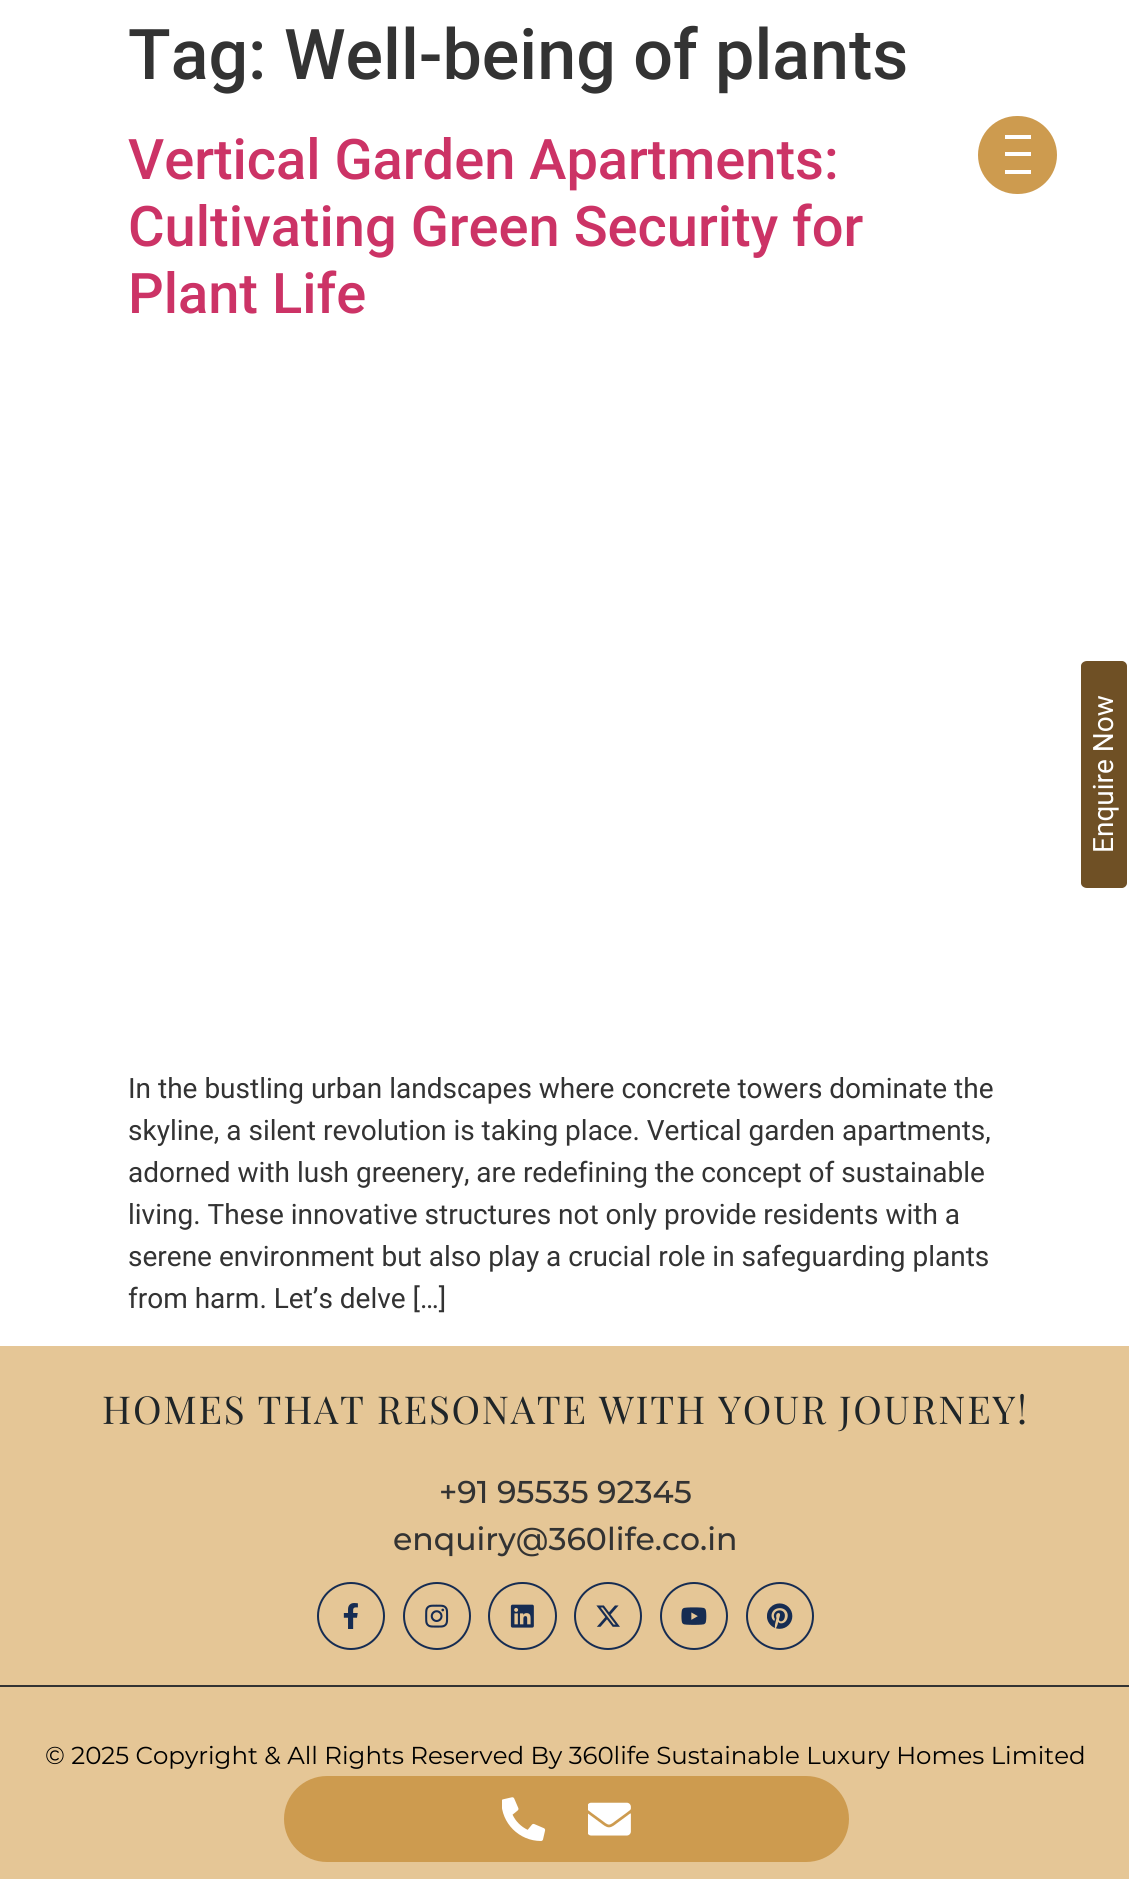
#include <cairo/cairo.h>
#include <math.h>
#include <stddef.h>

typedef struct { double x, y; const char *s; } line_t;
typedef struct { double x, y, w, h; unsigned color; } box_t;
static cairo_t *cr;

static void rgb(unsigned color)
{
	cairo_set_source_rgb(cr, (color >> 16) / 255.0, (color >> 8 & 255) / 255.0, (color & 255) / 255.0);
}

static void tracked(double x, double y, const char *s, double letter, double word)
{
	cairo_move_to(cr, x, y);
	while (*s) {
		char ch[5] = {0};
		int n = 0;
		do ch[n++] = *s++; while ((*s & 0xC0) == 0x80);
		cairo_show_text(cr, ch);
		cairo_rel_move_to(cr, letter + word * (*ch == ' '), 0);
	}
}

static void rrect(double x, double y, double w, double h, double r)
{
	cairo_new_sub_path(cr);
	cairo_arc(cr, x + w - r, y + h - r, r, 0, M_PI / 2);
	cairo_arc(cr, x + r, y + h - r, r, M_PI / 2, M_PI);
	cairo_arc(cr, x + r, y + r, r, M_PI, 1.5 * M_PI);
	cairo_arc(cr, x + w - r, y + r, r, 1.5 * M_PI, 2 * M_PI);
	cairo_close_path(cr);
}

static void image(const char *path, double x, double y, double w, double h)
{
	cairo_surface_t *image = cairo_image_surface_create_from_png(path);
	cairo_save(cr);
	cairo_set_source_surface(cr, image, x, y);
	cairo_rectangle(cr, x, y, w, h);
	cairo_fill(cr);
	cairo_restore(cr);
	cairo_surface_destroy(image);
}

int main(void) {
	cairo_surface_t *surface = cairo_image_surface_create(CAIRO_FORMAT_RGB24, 1129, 1879);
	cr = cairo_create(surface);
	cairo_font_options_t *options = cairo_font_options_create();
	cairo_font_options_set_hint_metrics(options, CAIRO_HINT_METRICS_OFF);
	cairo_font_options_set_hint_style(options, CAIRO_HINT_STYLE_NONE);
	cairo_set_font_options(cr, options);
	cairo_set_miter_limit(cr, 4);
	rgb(0xffffff);
	cairo_paint(cr);
	rgb(0xcd9b4f);
	rrect(978, 116, 79, 78, 39);
	cairo_fill(cr);
	{
		static const box_t items[] = {
			{1005, 152, 26, 4, 0xffffff},
			{1005, 135, 26, 4, 0xffffff},
			{1005, 170, 26, 4, 0xffffff},
		};
		for (size_t i = 0; i < sizeof items / sizeof *items; i++) {
			rgb(items[i].color);
			cairo_rectangle(cr, items[i].x, items[i].y, items[i].w, items[i].h);
			cairo_fill(cr);
		}
	}
	rgb(0x6f5025);
	cairo_new_path(cr);
	cairo_move_to(cr, 1081, 883);
	cairo_line_to(cr, 1081, 666);
	cairo_curve_to(cr, 1081, 663, 1084, 661, 1087, 661);
	cairo_line_to(cr, 1122, 661);
	cairo_curve_to(cr, 1124, 661, 1127, 663, 1127, 666);
	cairo_line_to(cr, 1127, 883);
	cairo_curve_to(cr, 1127, 886, 1124, 888, 1122, 888);
	cairo_line_to(cr, 1087, 888);
	cairo_curve_to(cr, 1084, 888, 1081, 886, 1081, 883);
	cairo_close_path(cr);
	cairo_fill(cr);
	rgb(0xe5c696);
	cairo_rectangle(cr, 0, 1346, 1129, 339);
	cairo_fill(cr);
	cairo_arc(cr, 351, 1616, 33, 0, 2 * M_PI);
	rgb(0x162c52);
	cairo_stroke(cr);
	image("img/1.png", 343, 1603, 15, 26);
	cairo_arc(cr, 437, 1616, 33, 0, 2 * M_PI);
	cairo_stroke(cr);
	image("img/2.png", 425, 1604, 24, 24);
	rrect(489, 1583, 67, 66, 33);
	cairo_stroke(cr);
	image("img/3.png", 510, 1604, 24, 24);
	cairo_arc(cr, 608, 1616, 33, 0, 2 * M_PI);
	cairo_stroke(cr);
	image("img/4.png", 596, 1605, 24, 22);
	cairo_arc(cr, 694, 1616, 33, 0, 2 * M_PI);
	cairo_stroke(cr);
	image("img/5.png", 681, 1607, 26, 18);
	cairo_arc(cr, 780, 1616, 33, 0, 2 * M_PI);
	cairo_stroke(cr);
	image("img/6.png", 767, 1603, 26, 26);
	rgb(0xe5c696);
	cairo_rectangle(cr, 0, 1687, 1129, 192);
	cairo_fill(cr);
	rgb(0x333333);
	cairo_rectangle(cr, 0, 1685, 1129, 2);
	cairo_fill(cr);
	rgb(0xcd9b4f);
	rrect(284, 1776, 565, 86, 43);
	cairo_fill(cr);
	image("img/7.png", 502, 1797, 44, 44);
	image("img/8.png", 588, 1802, 43, 34);
	cairo_select_font_face(cr, "Roboto Medium", CAIRO_FONT_SLANT_NORMAL, CAIRO_FONT_WEIGHT_NORMAL);
	cairo_set_font_size(cr, 70);
	rgb(0x333333);
	cairo_move_to(cr, 128, 79);
	cairo_show_text(cr, "Tag: Well-being of plants");
	cairo_set_font_size(cr, 56);
	rgb(0xcc3366);
	{
		static const line_t items[] = {
			{128, 179, "Vertical Garden Apartments:"},
			{128, 246, "Cultivating Green Security for"},
			{128, 313, "Plant Life"},
		};
		for (size_t i = 0; i < sizeof items / sizeof *items; i++) {
			cairo_move_to(cr, items[i].x, items[i].y);
			cairo_show_text(cr, items[i].s);
		}
	}
	cairo_select_font_face(cr, "Roboto", CAIRO_FONT_SLANT_NORMAL, CAIRO_FONT_WEIGHT_NORMAL);
	cairo_set_font_size(cr, 28);
	rgb(0x333333);
	{
		static const line_t items[] = {
			{128, 1098, "In the bustling urban landscapes where concrete towers dominate the"},
			{128, 1140, "skyline, a silent revolution is taking place. Vertical garden apartments,"},
			{128, 1182, "adorned with lush greenery, are redefining the concept of sustainable"},
			{128, 1224, "living. These innovative structures not only provide residents with a"},
			{128, 1266, "serene environment but also play a crucial role in safeguarding plants"},
			{128, 1308, "from harm. Let’s delve […]"},
		};
		for (size_t i = 0; i < sizeof items / sizeof *items; i++) {
			cairo_move_to(cr, items[i].x, items[i].y);
			cairo_show_text(cr, items[i].s);
		}
	}
	rgb(0xffffff);
	cairo_save(cr);
	cairo_translate(cr, 1113, 853);
	cairo_rotate(cr, -90 * M_PI / 180);
	cairo_move_to(cr, 0, 0);
	cairo_show_text(cr, "Enquire Now");
	cairo_restore(cr);
	cairo_select_font_face(cr, "Playfair Display", CAIRO_FONT_SLANT_NORMAL, CAIRO_FONT_WEIGHT_NORMAL);
	cairo_set_font_size(cr, 38.5);
	rgb(0x1f2528);
	tracked(102, 1424, "HOMES THAT RESONATE WITH YOUR JOURNEY!", 1.75, 0);
	cairo_select_font_face(cr, "Montserrat Medium", CAIRO_FONT_SLANT_NORMAL, CAIRO_FONT_WEIGHT_NORMAL);
	cairo_set_font_size(cr, 31.5);
	rgb(0x333333);
	cairo_move_to(cr, 439, 1503);
	cairo_show_text(cr, "+91 95535 92345");
	cairo_move_to(cr, 393, 1550);
	cairo_show_text(cr, "enquiry@360life.co.in");
	cairo_select_font_face(cr, "Montserrat", CAIRO_FONT_SLANT_NORMAL, CAIRO_FONT_WEIGHT_NORMAL);
	cairo_set_font_size(cr, 24.5);
	rgb(0x000000);
	cairo_move_to(cr, 45, 1764);
	cairo_show_text(cr, "© 2025 Copyright & All Rights Reserved By 360life Sustainable Luxury Homes Limited");
	cairo_surface_write_to_png(surface, "page.png");
	cairo_font_options_destroy(options);
	cairo_destroy(cr);
	cairo_surface_destroy(surface);
	return 0;
}
